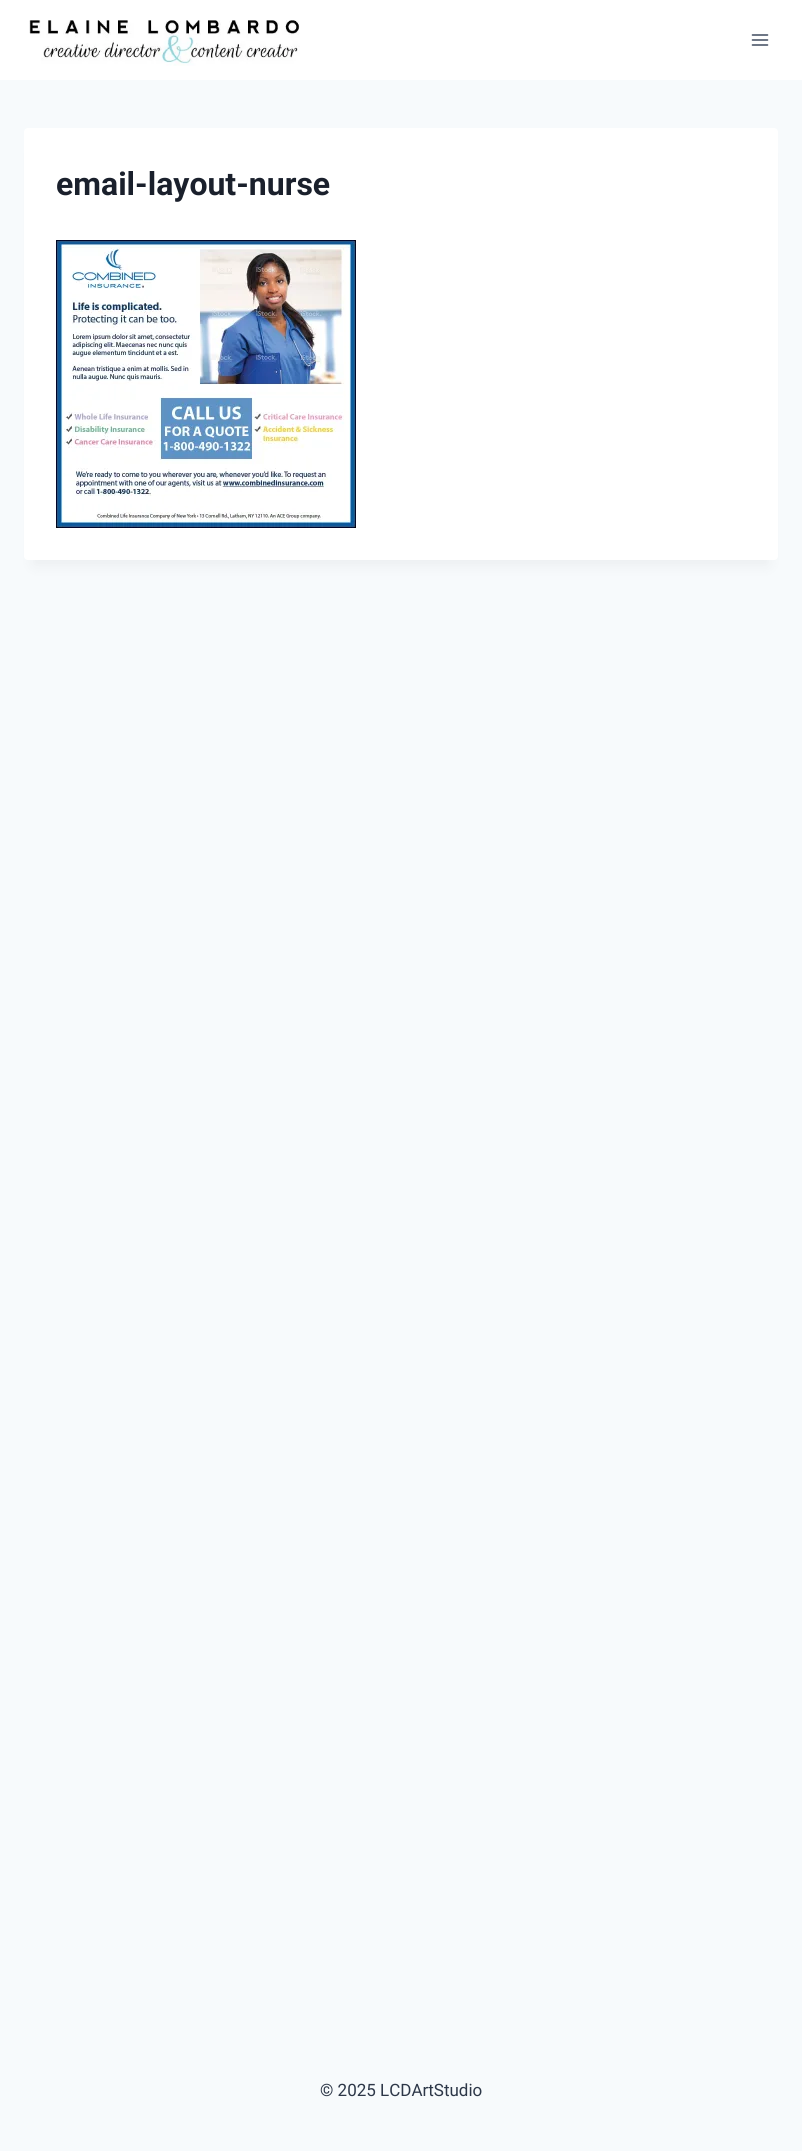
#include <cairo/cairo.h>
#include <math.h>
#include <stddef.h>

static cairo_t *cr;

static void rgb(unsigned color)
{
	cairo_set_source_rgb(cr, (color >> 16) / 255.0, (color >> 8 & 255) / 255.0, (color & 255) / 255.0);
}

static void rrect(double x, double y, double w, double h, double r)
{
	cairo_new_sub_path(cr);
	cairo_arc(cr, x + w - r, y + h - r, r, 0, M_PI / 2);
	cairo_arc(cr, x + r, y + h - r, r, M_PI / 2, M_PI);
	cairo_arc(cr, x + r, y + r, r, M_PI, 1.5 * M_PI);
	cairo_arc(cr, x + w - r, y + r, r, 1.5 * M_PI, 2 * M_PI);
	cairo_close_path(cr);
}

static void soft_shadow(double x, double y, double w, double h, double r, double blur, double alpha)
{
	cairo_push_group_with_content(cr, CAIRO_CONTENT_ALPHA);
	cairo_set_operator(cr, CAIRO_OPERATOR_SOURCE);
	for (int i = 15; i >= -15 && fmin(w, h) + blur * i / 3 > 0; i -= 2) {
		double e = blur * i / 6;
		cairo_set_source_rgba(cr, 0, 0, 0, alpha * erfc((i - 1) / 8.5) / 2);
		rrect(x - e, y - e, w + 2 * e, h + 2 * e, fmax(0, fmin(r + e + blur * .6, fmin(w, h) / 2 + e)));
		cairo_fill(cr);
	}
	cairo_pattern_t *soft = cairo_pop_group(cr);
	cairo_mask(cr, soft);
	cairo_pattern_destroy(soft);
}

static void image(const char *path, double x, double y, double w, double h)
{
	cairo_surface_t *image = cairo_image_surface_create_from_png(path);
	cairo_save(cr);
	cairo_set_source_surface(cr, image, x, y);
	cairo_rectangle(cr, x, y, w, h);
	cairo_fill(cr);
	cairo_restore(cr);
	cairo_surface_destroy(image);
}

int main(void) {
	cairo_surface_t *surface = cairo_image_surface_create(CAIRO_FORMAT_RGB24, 802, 2151);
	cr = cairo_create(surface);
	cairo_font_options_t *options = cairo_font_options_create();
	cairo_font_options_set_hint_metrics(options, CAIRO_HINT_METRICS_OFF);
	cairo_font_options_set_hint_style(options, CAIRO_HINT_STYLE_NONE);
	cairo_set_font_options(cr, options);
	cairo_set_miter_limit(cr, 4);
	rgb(0xf7fafc);
	cairo_paint(cr);
	rgb(0xffffff);
	cairo_rectangle(cr, 0, 0, 802, 80);
	cairo_fill(cr);
	image("img/1.png", 29, 20, 271, 46);
	image("img/2.png", 751, 34, 18, 12);
	rgb(0x000000);
	soft_shadow(34, 153, 734, 412, 0, 7.5, 0.05);
	rgb(0xffffff);
	rrect(24, 128, 754, 432, 4);
	cairo_fill(cr);
	image("img/3.png", 56, 240, 300, 288);
	cairo_select_font_face(cr, "Roboto", CAIRO_FONT_SLANT_NORMAL, CAIRO_FONT_WEIGHT_BOLD);
	cairo_set_font_size(cr, 32);
	rgb(0x1a202c);
	cairo_move_to(cr, 56, 195);
	cairo_show_text(cr, "email-layout-nurse");
	cairo_select_font_face(cr, "Roboto", CAIRO_FONT_SLANT_NORMAL, CAIRO_FONT_WEIGHT_NORMAL);
	cairo_set_font_size(cr, 17);
	rgb(0x2d3748);
	cairo_move_to(cr, 320, 2096);
	cairo_show_text(cr, "© 2025 LCDArtStudio");
	cairo_surface_write_to_png(surface, "page.png");
	cairo_font_options_destroy(options);
	cairo_destroy(cr);
	cairo_surface_destroy(surface);
	return 0;
}
